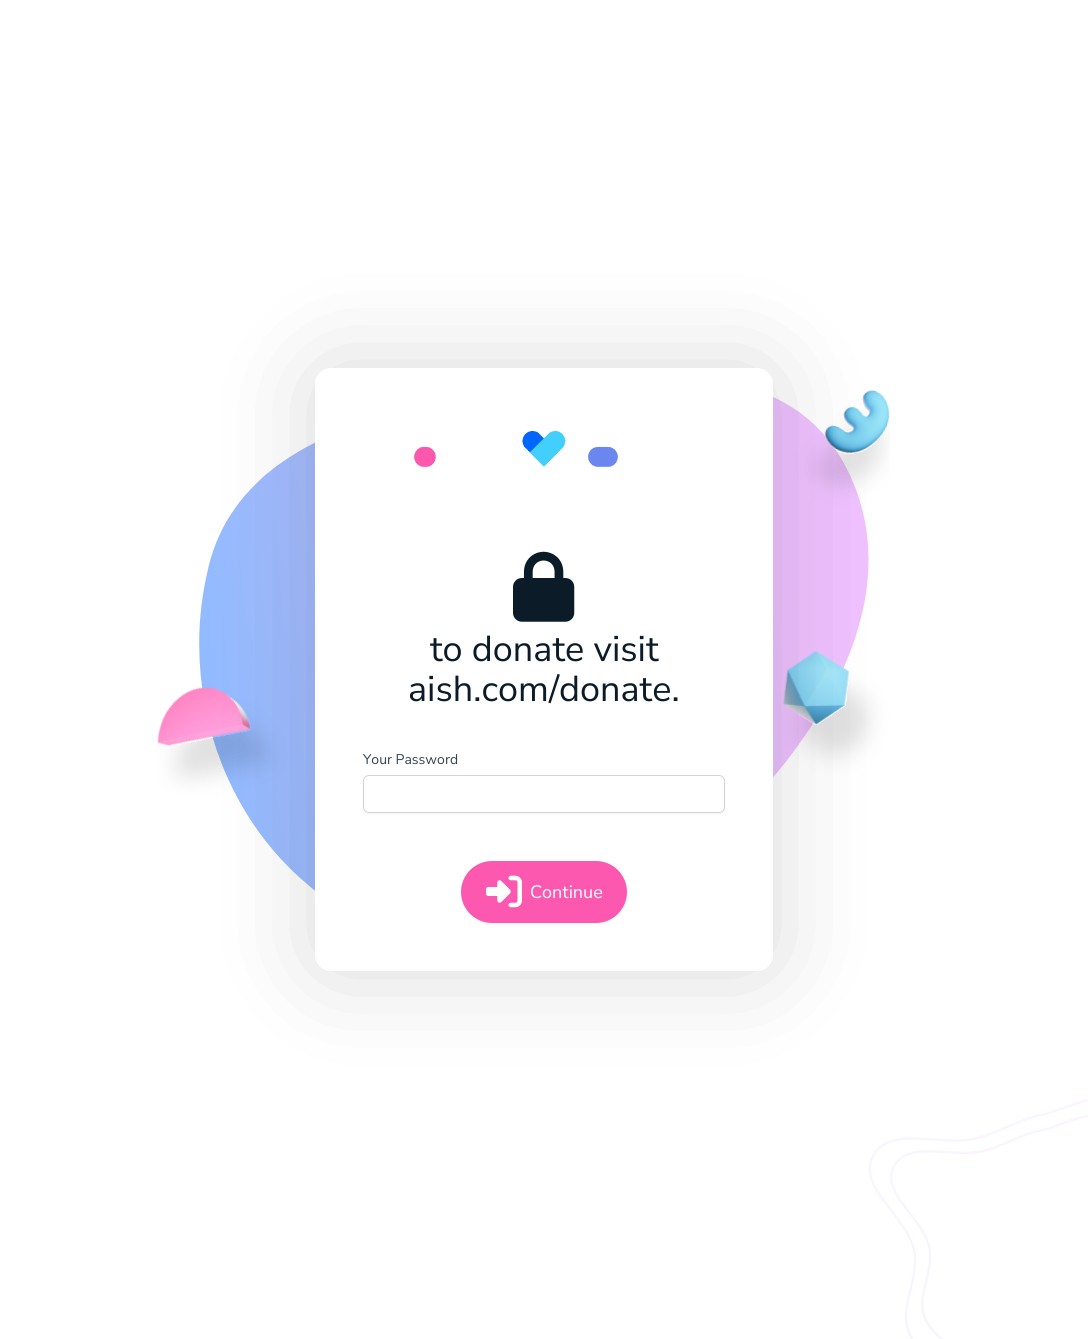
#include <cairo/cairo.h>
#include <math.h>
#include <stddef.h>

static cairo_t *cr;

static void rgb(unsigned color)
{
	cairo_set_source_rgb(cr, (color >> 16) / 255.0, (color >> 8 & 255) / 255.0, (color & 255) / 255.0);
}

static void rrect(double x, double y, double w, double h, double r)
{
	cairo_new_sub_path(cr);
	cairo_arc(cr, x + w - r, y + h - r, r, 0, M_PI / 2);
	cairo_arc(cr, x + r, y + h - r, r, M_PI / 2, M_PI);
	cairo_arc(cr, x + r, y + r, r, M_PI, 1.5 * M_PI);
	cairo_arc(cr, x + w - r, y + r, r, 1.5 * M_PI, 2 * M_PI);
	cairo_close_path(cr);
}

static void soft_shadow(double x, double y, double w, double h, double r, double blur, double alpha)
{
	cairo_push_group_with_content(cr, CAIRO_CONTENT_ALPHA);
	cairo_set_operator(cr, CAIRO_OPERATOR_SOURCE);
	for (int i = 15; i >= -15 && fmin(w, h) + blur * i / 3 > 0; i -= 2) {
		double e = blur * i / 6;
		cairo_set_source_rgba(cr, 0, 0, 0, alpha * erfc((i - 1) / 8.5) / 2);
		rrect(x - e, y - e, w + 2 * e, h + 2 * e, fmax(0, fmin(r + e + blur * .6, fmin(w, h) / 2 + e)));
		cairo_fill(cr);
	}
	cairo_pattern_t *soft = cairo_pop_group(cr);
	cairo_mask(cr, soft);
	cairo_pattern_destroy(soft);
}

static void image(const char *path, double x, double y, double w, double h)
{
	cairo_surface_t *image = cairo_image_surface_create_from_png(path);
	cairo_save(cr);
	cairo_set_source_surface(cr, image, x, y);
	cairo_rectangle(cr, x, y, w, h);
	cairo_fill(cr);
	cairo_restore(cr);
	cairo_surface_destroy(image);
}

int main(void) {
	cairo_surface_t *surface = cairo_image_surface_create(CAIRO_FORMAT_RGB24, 1088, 1339);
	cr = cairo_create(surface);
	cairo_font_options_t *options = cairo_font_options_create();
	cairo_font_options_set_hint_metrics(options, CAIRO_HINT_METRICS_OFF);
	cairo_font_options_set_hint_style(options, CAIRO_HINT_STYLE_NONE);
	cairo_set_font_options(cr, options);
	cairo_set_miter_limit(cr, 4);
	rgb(0xffffff);
	cairo_paint(cr);
	image("img/1.png", 157, 390, 733, 501);
	image("img/5.png", 868, 1099, 220, 240);
	rgb(0x000000);
	soft_shadow(315, 368, 458, 603, 16, 51.5, 0.15);
	rgb(0xffffff);
	rrect(315, 368, 458, 603, 16);
	cairo_fill(cr);
	image("img/2.png", 414, 431, 204, 36);
	image("img/3.png", 513, 551, 62, 71);
	rgb(0x000000);
	soft_shadow(363, 776, 362, 38, 6, 1, 0.05);
	rgb(0xffffff);
	rrect(363.5, 775.5, 361, 37, 5.5);
	cairo_fill_preserve(cr);
	rgb(0xd1d5db);
	cairo_set_line_width(cr, 1);
	cairo_stroke(cr);
	rgb(0xfc58af);
	rrect(461, 861, 166, 62, 31);
	cairo_fill(cr);
	image("img/4.png", 486, 875, 36, 33);
	cairo_select_font_face(cr, "Nunito Sans", CAIRO_FONT_SLANT_NORMAL, CAIRO_FONT_WEIGHT_NORMAL);
	cairo_set_font_size(cr, 36);
	rgb(0x0b1b28);
	cairo_move_to(cr, 430, 661);
	cairo_show_text(cr, "to donate visit");
	cairo_move_to(cr, 408, 701);
	cairo_show_text(cr, "aish.com/donate.");
	cairo_set_font_size(cr, 14);
	rgb(0x374151);
	cairo_move_to(cr, 363, 764);
	cairo_show_text(cr, "Your Password");
	cairo_set_font_size(cr, 18);
	rgb(0xffffff);
	cairo_move_to(cr, 530, 898);
	cairo_show_text(cr, "Continue");
	cairo_surface_write_to_png(surface, "page.png");
	cairo_font_options_destroy(options);
	cairo_destroy(cr);
	cairo_surface_destroy(surface);
	return 0;
}
